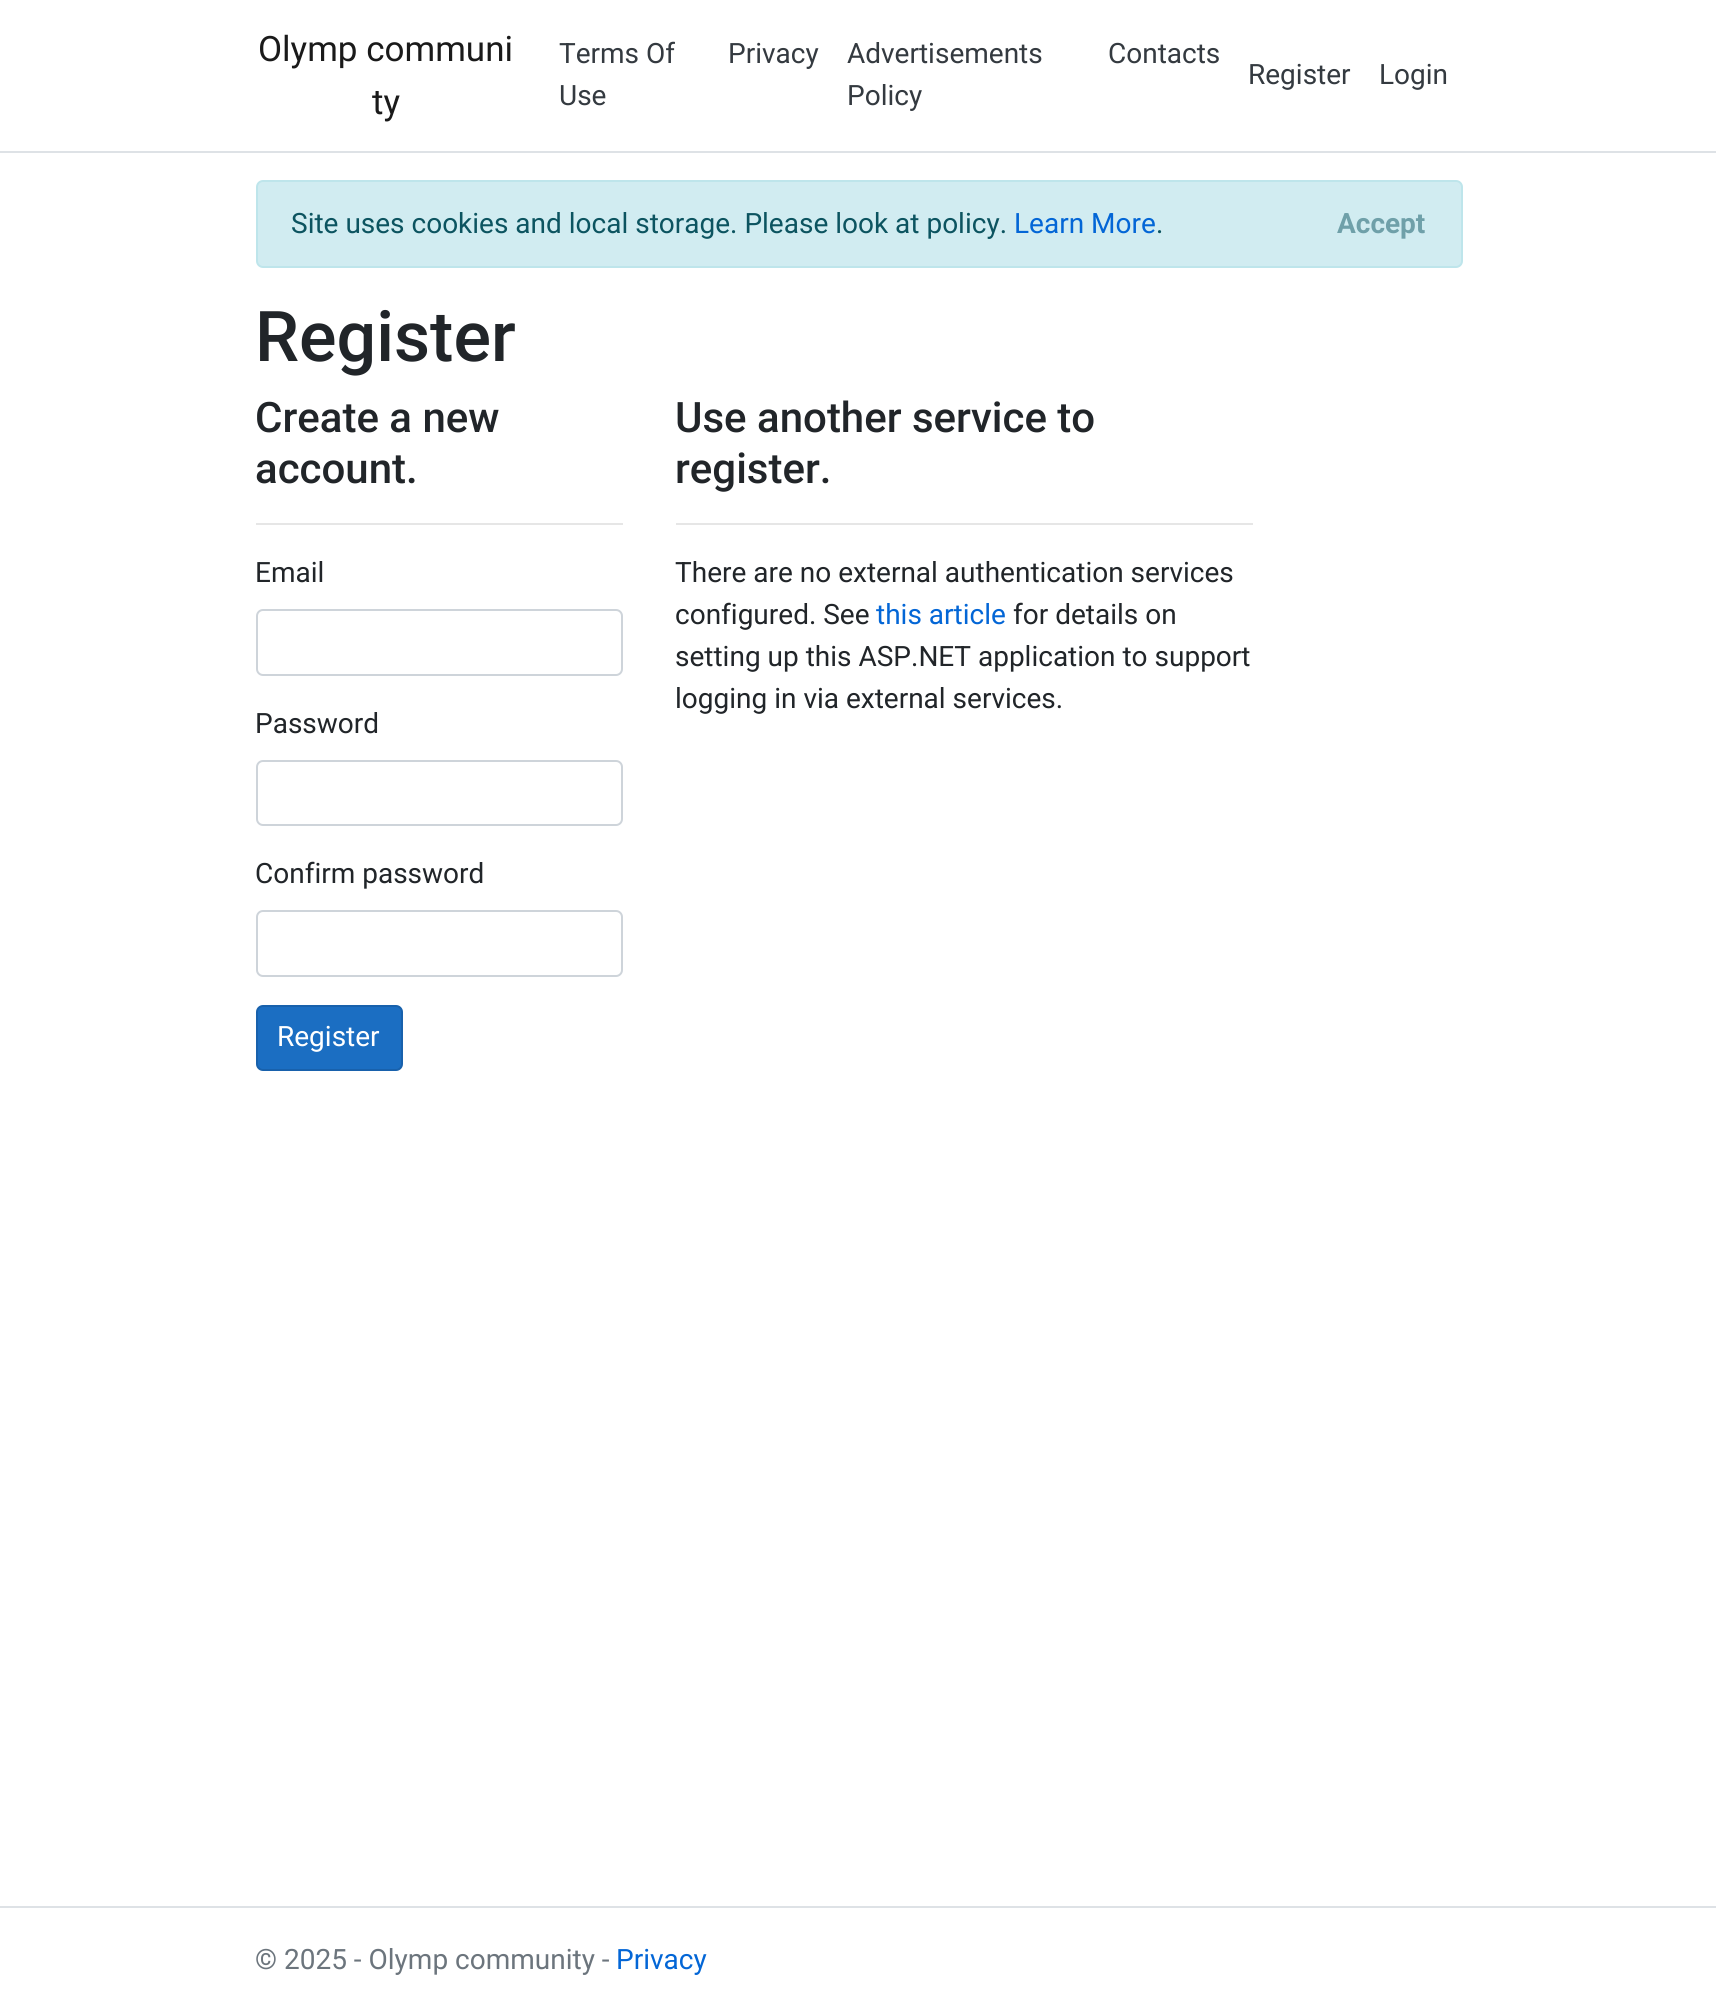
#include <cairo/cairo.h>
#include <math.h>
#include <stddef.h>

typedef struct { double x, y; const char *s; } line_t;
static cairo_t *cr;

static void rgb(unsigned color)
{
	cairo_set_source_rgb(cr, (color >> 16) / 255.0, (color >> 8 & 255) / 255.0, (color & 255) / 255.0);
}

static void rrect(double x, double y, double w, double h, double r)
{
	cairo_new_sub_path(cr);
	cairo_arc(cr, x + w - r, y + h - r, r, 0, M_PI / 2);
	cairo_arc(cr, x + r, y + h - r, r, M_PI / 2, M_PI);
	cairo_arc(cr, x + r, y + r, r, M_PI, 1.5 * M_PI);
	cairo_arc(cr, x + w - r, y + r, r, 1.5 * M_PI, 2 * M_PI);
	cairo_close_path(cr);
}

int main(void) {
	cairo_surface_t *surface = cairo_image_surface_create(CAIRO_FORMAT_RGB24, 1716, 2012);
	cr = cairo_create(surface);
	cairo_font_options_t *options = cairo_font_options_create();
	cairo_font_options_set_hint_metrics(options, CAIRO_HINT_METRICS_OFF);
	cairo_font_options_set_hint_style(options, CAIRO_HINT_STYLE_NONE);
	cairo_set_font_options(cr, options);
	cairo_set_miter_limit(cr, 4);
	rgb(0xffffff);
	cairo_paint(cr);
	rgb(0xdee2e6);
	cairo_rectangle(cr, 0, 151, 1716, 2);
	cairo_fill(cr);
	rgb(0xd1ecf1);
	rrect(257, 181, 1205, 86, 6);
	cairo_fill_preserve(cr);
	rgb(0xbee5eb);
	cairo_stroke(cr);
	rgb(0xe6e6e6);
	cairo_rectangle(cr, 256, 523, 367, 2);
	cairo_fill(cr);
	rrect(257, 610, 365, 65, 6);
	rgb(0xced4da);
	cairo_stroke(cr);
	rrect(257, 761, 365, 64, 6);
	cairo_stroke(cr);
	rrect(257, 911, 365, 65, 6);
	cairo_stroke(cr);
	rgb(0x1b6ec2);
	rrect(257, 1006, 145, 64, 6);
	cairo_fill_preserve(cr);
	rgb(0x1861ac);
	cairo_stroke(cr);
	rgb(0xe6e6e6);
	cairo_rectangle(cr, 676, 523, 577, 2);
	cairo_fill(cr);
	rgb(0xdee2e6);
	cairo_rectangle(cr, 0, 1906, 1716, 2);
	cairo_fill(cr);
	cairo_select_font_face(cr, "Roboto", CAIRO_FONT_SLANT_NORMAL, CAIRO_FONT_WEIGHT_NORMAL);
	cairo_set_font_size(cr, 35);
	rgb(0x1a1a1a);
	cairo_move_to(cr, 258, 61);
	cairo_show_text(cr, "Olymp communi");
	cairo_move_to(cr, 372, 114);
	cairo_show_text(cr, "ty");
	cairo_set_font_size(cr, 28);
	rgb(0x343a40);
	{
		static const line_t items[] = {
			{559, 63, "Terms Of"},
			{559, 105, "Use"},
			{728, 63, "Privacy"},
			{847, 63, "Advertisements"},
			{847, 105, "Policy"},
			{1108, 63, "Contacts"},
			{1248, 84, "Register"},
			{1379, 84, "Login"},
		};
		for (size_t i = 0; i < sizeof items / sizeof *items; i++) {
			cairo_move_to(cr, items[i].x, items[i].y);
			cairo_show_text(cr, items[i].s);
		}
	}
	rgb(0x0c5460);
	cairo_move_to(cr, 291, 233);
	cairo_show_text(cr, "Site uses cookies and local storage. Please look at policy.");
	rgb(0x0366d6);
	cairo_move_to(cr, 1014, 233);
	cairo_show_text(cr, "Learn More");
	rgb(0x0c5460);
	cairo_move_to(cr, 1156, 233);
	cairo_show_text(cr, ".");
	cairo_select_font_face(cr, "Roboto", CAIRO_FONT_SLANT_NORMAL, CAIRO_FONT_WEIGHT_BOLD);
	rgb(0x6fa0a9);
	cairo_move_to(cr, 1337, 233);
	cairo_show_text(cr, "Accept");
	cairo_select_font_face(cr, "Roboto Medium", CAIRO_FONT_SLANT_NORMAL, CAIRO_FONT_WEIGHT_NORMAL);
	cairo_set_font_size(cr, 70);
	rgb(0x212529);
	cairo_move_to(cr, 255, 361);
	cairo_show_text(cr, "Register");
	cairo_set_font_size(cr, 42);
	cairo_move_to(cr, 255, 432);
	cairo_show_text(cr, "Create a new");
	cairo_move_to(cr, 255, 483);
	cairo_show_text(cr, "account.");
	cairo_select_font_face(cr, "Roboto", CAIRO_FONT_SLANT_NORMAL, CAIRO_FONT_WEIGHT_NORMAL);
	cairo_set_font_size(cr, 28);
	{
		static const line_t items[] = {
			{255, 582, "Email"},
			{255, 733, "Password"},
			{255, 883, "Confirm password"},
		};
		for (size_t i = 0; i < sizeof items / sizeof *items; i++) {
			cairo_move_to(cr, items[i].x, items[i].y);
			cairo_show_text(cr, items[i].s);
		}
	}
	rgb(0xffffff);
	cairo_move_to(cr, 277, 1046);
	cairo_show_text(cr, "Register");
	cairo_select_font_face(cr, "Roboto Medium", CAIRO_FONT_SLANT_NORMAL, CAIRO_FONT_WEIGHT_NORMAL);
	cairo_set_font_size(cr, 42);
	rgb(0x212529);
	cairo_move_to(cr, 675, 432);
	cairo_show_text(cr, "Use another service to");
	cairo_move_to(cr, 675, 483);
	cairo_show_text(cr, "register.");
	cairo_select_font_face(cr, "Roboto", CAIRO_FONT_SLANT_NORMAL, CAIRO_FONT_WEIGHT_NORMAL);
	cairo_set_font_size(cr, 28);
	cairo_move_to(cr, 675, 582);
	cairo_show_text(cr, "There are no external authentication services");
	cairo_move_to(cr, 675, 624);
	cairo_show_text(cr, "configured. See");
	rgb(0x0366d6);
	cairo_move_to(cr, 876, 624);
	cairo_show_text(cr, "this article");
	rgb(0x212529);
	{
		static const line_t items[] = {
			{1013, 624, "for details on"},
			{675, 666, "setting up this ASP.NET application to support"},
			{675, 708, "logging in via external services."},
		};
		for (size_t i = 0; i < sizeof items / sizeof *items; i++) {
			cairo_move_to(cr, items[i].x, items[i].y);
			cairo_show_text(cr, items[i].s);
		}
	}
	rgb(0x6c757d);
	cairo_move_to(cr, 255, 1969);
	cairo_show_text(cr, "© 2025 - Olymp community -");
	rgb(0x0366d6);
	cairo_move_to(cr, 616, 1969);
	cairo_show_text(cr, "Privacy");
	cairo_surface_write_to_png(surface, "page.png");
	cairo_font_options_destroy(options);
	cairo_destroy(cr);
	cairo_surface_destroy(surface);
	return 0;
}
